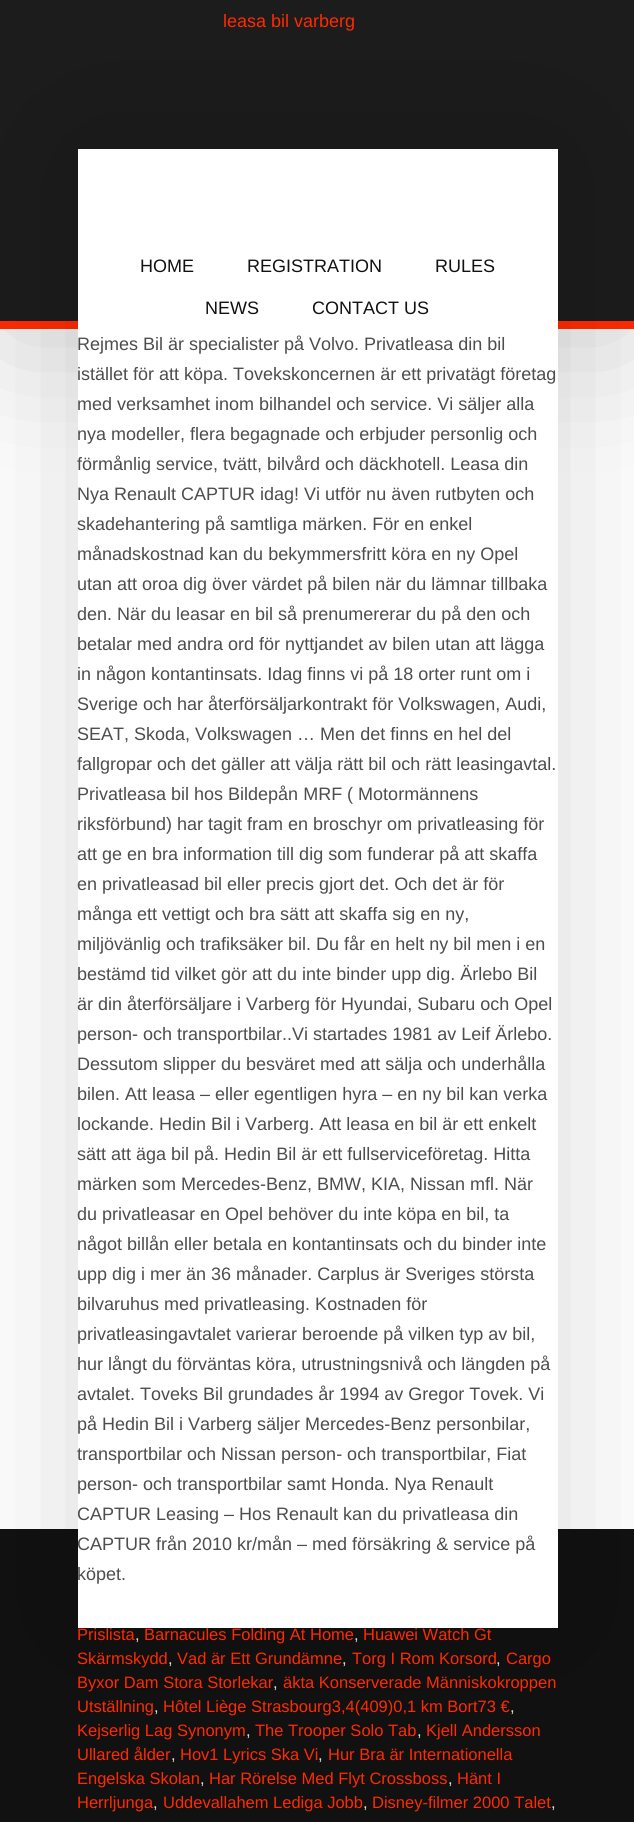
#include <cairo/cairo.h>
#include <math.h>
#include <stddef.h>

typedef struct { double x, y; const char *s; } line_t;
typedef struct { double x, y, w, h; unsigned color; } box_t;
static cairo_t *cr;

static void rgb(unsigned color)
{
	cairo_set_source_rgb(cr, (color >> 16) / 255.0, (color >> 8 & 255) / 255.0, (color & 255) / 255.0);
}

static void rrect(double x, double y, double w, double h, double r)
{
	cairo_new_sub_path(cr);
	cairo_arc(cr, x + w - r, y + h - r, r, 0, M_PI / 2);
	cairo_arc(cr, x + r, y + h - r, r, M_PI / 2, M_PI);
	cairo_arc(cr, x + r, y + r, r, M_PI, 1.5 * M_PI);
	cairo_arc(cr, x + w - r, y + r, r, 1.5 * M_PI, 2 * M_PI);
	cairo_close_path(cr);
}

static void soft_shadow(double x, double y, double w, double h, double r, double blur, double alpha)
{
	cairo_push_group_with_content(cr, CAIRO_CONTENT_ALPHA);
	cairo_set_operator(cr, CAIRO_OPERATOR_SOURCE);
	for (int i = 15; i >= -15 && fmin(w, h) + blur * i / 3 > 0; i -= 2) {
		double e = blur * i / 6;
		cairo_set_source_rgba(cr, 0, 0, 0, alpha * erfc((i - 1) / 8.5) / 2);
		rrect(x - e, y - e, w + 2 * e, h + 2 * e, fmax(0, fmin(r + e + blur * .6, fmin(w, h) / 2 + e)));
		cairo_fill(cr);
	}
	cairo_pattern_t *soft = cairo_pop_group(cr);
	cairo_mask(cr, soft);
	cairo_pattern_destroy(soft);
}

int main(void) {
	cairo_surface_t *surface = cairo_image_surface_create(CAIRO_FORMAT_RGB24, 634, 1822);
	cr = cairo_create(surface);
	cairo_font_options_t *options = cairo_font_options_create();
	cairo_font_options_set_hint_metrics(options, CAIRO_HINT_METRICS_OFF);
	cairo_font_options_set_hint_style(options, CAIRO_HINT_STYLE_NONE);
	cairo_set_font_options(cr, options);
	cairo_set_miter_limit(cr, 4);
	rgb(0xffffff);
	cairo_paint(cr);
	rgb(0x000000);
	soft_shadow(0, 6, 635, 329, 0, 75, 0.15);
	{
		static const box_t items[] = {
			{0, 0, 634, 321, 0x1c1c1c},
			{0, 321, 634, 8, 0xff2a00},
			{0, 1529, 634, 293, 0x111111},
		};
		for (size_t i = 0; i < sizeof items / sizeof *items; i++) {
			rgb(items[i].color);
			cairo_rectangle(cr, items[i].x, items[i].y, items[i].w, items[i].h);
			cairo_fill(cr);
		}
	}
	rgb(0x000000);
	soft_shadow(78, 149, 480, 1479, 0, 75, 0.15);
	rgb(0xffffff);
	cairo_rectangle(cr, 78, 149, 480, 1479);
	cairo_fill(cr);
	cairo_select_font_face(cr, "Liberation Sans", CAIRO_FONT_SLANT_NORMAL, CAIRO_FONT_WEIGHT_NORMAL);
	cairo_set_font_size(cr, 18);
	rgb(0xff2a00);
	cairo_move_to(cr, 223, 27);
	cairo_show_text(cr, "leasa bil varberg");
	rgb(0x111111);
	{
		static const line_t items[] = {
			{140, 272, "HOME"},
			{247, 272, "REGISTRATION"},
			{435, 272, "RULES"},
			{205, 314, "NEWS"},
			{312, 314, "CONTACT US"},
		};
		for (size_t i = 0; i < sizeof items / sizeof *items; i++) {
			cairo_move_to(cr, items[i].x, items[i].y);
			cairo_show_text(cr, items[i].s);
		}
	}
	rgb(0x4d4d4d);
	{
		static const line_t items[] = {
			{77, 350, "Rejmes Bil är specialister på Volvo. Privatleasa din bil"},
			{77, 380, "istället för att köpa. Tovekskoncernen är ett privatägt företag"},
			{77, 410, "med verksamhet inom bilhandel och service. Vi säljer alla"},
			{77, 440, "nya modeller, flera begagnade och erbjuder personlig och"},
			{77, 470, "förmånlig service, tvätt, bilvård och däckhotell. Leasa din"},
			{77, 500, "Nya Renault CAPTUR idag! Vi utför nu även rutbyten och"},
			{77, 530, "skadehantering på samtliga märken. För en enkel"},
			{77, 560, "månadskostnad kan du bekymmersfritt köra en ny Opel"},
			{77, 590, "utan att oroa dig över värdet på bilen när du lämnar tillbaka"},
			{77, 620, "den. När du leasar en bil så prenumererar du på den och"},
			{77, 650, "betalar med andra ord för nyttjandet av bilen utan att lägga"},
			{77, 680, "in någon kontantinsats. Idag finns vi på 18 orter runt om i"},
			{77, 710, "Sverige och har återförsäljarkontrakt för Volkswagen, Audi,"},
			{77, 740, "SEAT, Skoda, Volkswagen … Men det finns en hel del"},
			{77, 770, "fallgropar och det gäller att välja rätt bil och rätt leasingavtal."},
			{77, 800, "Privatleasa bil hos Bildepån MRF ( Motormännens"},
			{77, 830, "riksförbund) har tagit fram en broschyr om privatleasing för"},
			{77, 860, "att ge en bra information till dig som funderar på att skaffa"},
			{77, 890, "en privatleasad bil eller precis gjort det. Och det är för"},
			{77, 920, "många ett vettigt och bra sätt att skaffa sig en ny,"},
			{77, 950, "miljövänlig och trafiksäker bil. Du får en helt ny bil men i en"},
			{77, 980, "bestämd tid vilket gör att du inte binder upp dig. Ärlebo Bil"},
			{77, 1010, "är din återförsäljare i Varberg för Hyundai, Subaru och Opel"},
			{77, 1040, "person- och transportbilar..Vi startades 1981 av Leif Ärlebo."},
			{77, 1070, "Dessutom slipper du besväret med att sälja och underhålla"},
			{77, 1100, "bilen. Att leasa – eller egentligen hyra – en ny bil kan verka"},
			{77, 1130, "lockande. Hedin Bil i Varberg. Att leasa en bil är ett enkelt"},
			{77, 1160, "sätt att äga bil på. Hedin Bil är ett fullserviceföretag. Hitta"},
			{77, 1190, "märken som Mercedes-Benz, BMW, KIA, Nissan mfl. När"},
			{77, 1220, "du privatleasar en Opel behöver du inte köpa en bil, ta"},
			{77, 1250, "något billån eller betala en kontantinsats och du binder inte"},
			{77, 1280, "upp dig i mer än 36 månader. Carplus är Sveriges största"},
			{77, 1310, "bilvaruhus med privatleasing. Kostnaden för"},
			{77, 1340, "privatleasingavtalet varierar beroende på vilken typ av bil,"},
			{77, 1370, "hur långt du förväntas köra, utrustningsnivå och längden på"},
			{77, 1400, "avtalet. Toveks Bil grundades år 1994 av Gregor Tovek. Vi"},
			{77, 1430, "på Hedin Bil i Varberg säljer Mercedes-Benz personbilar,"},
			{77, 1460, "transportbilar och Nissan person- och transportbilar, Fiat"},
			{77, 1490, "person- och transportbilar samt Honda. Nya Renault"},
			{77, 1520, "CAPTUR Leasing – Hos Renault kan du privatleasa din"},
			{77, 1550, "CAPTUR från 2010 kr/mån – med försäkring & service på"},
			{77, 1580, "köpet."},
		};
		for (size_t i = 0; i < sizeof items / sizeof *items; i++) {
			cairo_move_to(cr, items[i].x, items[i].y);
			cairo_show_text(cr, items[i].s);
		}
	}
	cairo_set_font_size(cr, 16.5);
	rgb(0xff2a00);
	cairo_move_to(cr, 77, 1640);
	cairo_show_text(cr, "Prislista");
	rgb(0xdddddd);
	cairo_move_to(cr, 135, 1640);
	cairo_show_text(cr, ",");
	rgb(0xff2a00);
	cairo_move_to(cr, 144, 1640);
	cairo_show_text(cr, "Barnacules Folding At Home");
	rgb(0xdddddd);
	cairo_move_to(cr, 354, 1640);
	cairo_show_text(cr, ",");
	rgb(0xff2a00);
	cairo_move_to(cr, 363, 1640);
	cairo_show_text(cr, "Huawei Watch Gt");
	cairo_move_to(cr, 77, 1664);
	cairo_show_text(cr, "Skärmskydd");
	rgb(0xdddddd);
	cairo_move_to(cr, 168, 1664);
	cairo_show_text(cr, ",");
	rgb(0xff2a00);
	cairo_move_to(cr, 177, 1664);
	cairo_show_text(cr, "Vad är Ett Grundämne");
	rgb(0xdddddd);
	cairo_move_to(cr, 342, 1664);
	cairo_show_text(cr, ",");
	rgb(0xff2a00);
	cairo_move_to(cr, 352, 1664);
	cairo_show_text(cr, "Torg I Rom Korsord");
	rgb(0xdddddd);
	cairo_move_to(cr, 496, 1664);
	cairo_show_text(cr, ",");
	rgb(0xff2a00);
	cairo_move_to(cr, 506, 1664);
	cairo_show_text(cr, "Cargo");
	cairo_move_to(cr, 77, 1688);
	cairo_show_text(cr, "Byxor Dam Stora Storlekar");
	rgb(0xdddddd);
	cairo_move_to(cr, 273, 1688);
	cairo_show_text(cr, ",");
	rgb(0xff2a00);
	cairo_move_to(cr, 283, 1688);
	cairo_show_text(cr, "äkta Konserverade Människokroppen");
	cairo_move_to(cr, 77, 1712);
	cairo_show_text(cr, "Utställning");
	rgb(0xdddddd);
	cairo_move_to(cr, 154, 1712);
	cairo_show_text(cr, ",");
	rgb(0xff2a00);
	cairo_move_to(cr, 163, 1712);
	cairo_show_text(cr, "Hôtel Liège Strasbourg3,4(409)0,1 km Bort73 €");
	rgb(0xdddddd);
	cairo_move_to(cr, 510, 1712);
	cairo_show_text(cr, ",");
	rgb(0xff2a00);
	cairo_move_to(cr, 77, 1736);
	cairo_show_text(cr, "Kejserlig Lag Synonym");
	rgb(0xdddddd);
	cairo_move_to(cr, 246, 1736);
	cairo_show_text(cr, ",");
	rgb(0xff2a00);
	cairo_move_to(cr, 255, 1736);
	cairo_show_text(cr, "The Trooper Solo Tab");
	rgb(0xdddddd);
	cairo_move_to(cr, 417, 1736);
	cairo_show_text(cr, ",");
	rgb(0xff2a00);
	cairo_move_to(cr, 426, 1736);
	cairo_show_text(cr, "Kjell Andersson");
	cairo_move_to(cr, 77, 1760);
	cairo_show_text(cr, "Ullared ålder");
	rgb(0xdddddd);
	cairo_move_to(cr, 171, 1760);
	cairo_show_text(cr, ",");
	rgb(0xff2a00);
	cairo_move_to(cr, 180, 1760);
	cairo_show_text(cr, "Hov1 Lyrics Ska Vi");
	rgb(0xdddddd);
	cairo_move_to(cr, 318, 1760);
	cairo_show_text(cr, ",");
	rgb(0xff2a00);
	cairo_move_to(cr, 328, 1760);
	cairo_show_text(cr, "Hur Bra är Internationella");
	cairo_move_to(cr, 77, 1784);
	cairo_show_text(cr, "Engelska Skolan");
	rgb(0xdddddd);
	cairo_move_to(cr, 200, 1784);
	cairo_show_text(cr, ",");
	rgb(0xff2a00);
	cairo_move_to(cr, 209, 1784);
	cairo_show_text(cr, "Har Rörelse Med Flyt Crossboss");
	rgb(0xdddddd);
	cairo_move_to(cr, 448, 1784);
	cairo_show_text(cr, ",");
	rgb(0xff2a00);
	cairo_move_to(cr, 457, 1784);
	cairo_show_text(cr, "Hänt I");
	cairo_move_to(cr, 77, 1808);
	cairo_show_text(cr, "Herrljunga");
	rgb(0xdddddd);
	cairo_move_to(cr, 153, 1808);
	cairo_show_text(cr, ",");
	rgb(0xff2a00);
	cairo_move_to(cr, 163, 1808);
	cairo_show_text(cr, "Uddevallahem Lediga Jobb");
	rgb(0xdddddd);
	cairo_move_to(cr, 363, 1808);
	cairo_show_text(cr, ",");
	rgb(0xff2a00);
	cairo_move_to(cr, 372, 1808);
	cairo_show_text(cr, "Disney-filmer 2000 Talet");
	rgb(0xdddddd);
	cairo_move_to(cr, 551, 1808);
	cairo_show_text(cr, ",");
	cairo_surface_write_to_png(surface, "page.png");
	cairo_font_options_destroy(options);
	cairo_destroy(cr);
	cairo_surface_destroy(surface);
	return 0;
}
